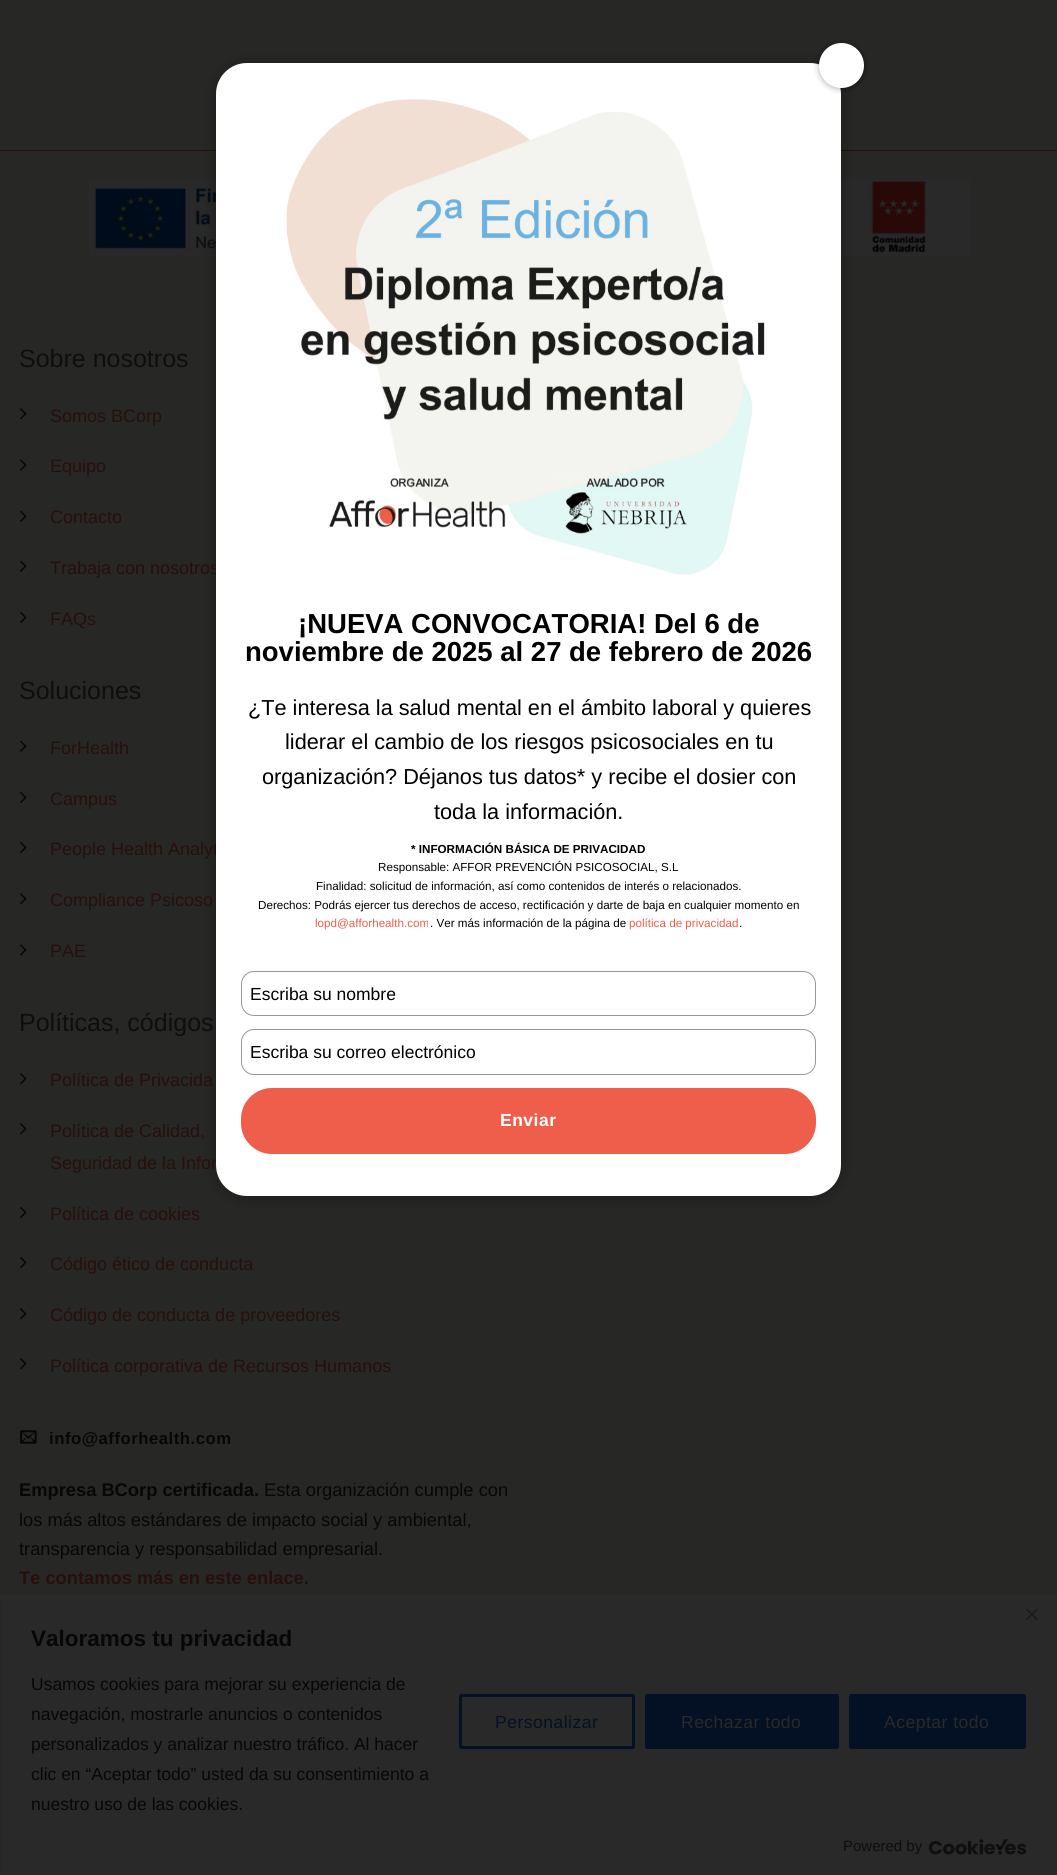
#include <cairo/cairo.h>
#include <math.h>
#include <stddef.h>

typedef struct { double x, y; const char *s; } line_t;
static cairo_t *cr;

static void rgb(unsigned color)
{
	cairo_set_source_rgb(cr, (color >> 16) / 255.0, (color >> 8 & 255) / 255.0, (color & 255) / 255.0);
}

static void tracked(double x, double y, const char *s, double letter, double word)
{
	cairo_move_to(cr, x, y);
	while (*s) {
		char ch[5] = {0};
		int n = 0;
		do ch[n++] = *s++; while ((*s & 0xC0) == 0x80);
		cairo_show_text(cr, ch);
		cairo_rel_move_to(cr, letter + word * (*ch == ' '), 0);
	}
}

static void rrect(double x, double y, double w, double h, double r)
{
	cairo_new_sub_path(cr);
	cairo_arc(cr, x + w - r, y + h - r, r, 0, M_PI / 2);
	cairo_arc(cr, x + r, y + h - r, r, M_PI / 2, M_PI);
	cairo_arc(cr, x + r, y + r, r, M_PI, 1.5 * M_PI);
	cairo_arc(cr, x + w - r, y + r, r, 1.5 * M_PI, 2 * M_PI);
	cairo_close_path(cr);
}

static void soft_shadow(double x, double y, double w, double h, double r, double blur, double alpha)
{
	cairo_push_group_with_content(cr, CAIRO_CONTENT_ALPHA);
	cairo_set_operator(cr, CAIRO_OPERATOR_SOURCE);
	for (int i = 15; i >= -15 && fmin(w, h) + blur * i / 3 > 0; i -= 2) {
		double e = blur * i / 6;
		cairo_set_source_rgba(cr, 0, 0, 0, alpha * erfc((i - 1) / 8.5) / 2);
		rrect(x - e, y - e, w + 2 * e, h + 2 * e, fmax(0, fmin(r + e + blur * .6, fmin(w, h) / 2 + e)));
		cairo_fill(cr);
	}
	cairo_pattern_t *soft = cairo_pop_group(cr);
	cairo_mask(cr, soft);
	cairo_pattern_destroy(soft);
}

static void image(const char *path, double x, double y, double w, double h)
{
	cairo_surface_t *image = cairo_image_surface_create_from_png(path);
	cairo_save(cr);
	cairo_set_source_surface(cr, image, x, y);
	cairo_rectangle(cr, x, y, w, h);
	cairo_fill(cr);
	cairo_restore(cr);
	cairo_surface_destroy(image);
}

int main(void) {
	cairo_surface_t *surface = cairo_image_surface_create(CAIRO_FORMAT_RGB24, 1057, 1875);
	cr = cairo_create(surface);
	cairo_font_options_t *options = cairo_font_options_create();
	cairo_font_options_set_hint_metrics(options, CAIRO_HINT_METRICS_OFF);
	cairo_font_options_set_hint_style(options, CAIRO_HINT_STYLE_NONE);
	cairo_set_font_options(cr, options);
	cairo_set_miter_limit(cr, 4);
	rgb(0x272726);
	cairo_paint(cr);
	rgb(0x260f0c);
	cairo_rectangle(cr, 0, 150, 1057, 1);
	cairo_fill(cr);
	image("img/1.png", 89, 178, 881, 78);
	rgb(0x000000);
	soft_shadow(216, 64, 625, 1134, 31, 8, 0.3);
	soft_shadow(819, 44, 45, 45, 22.5, 3, 0.3);
	image("img/2.png", 20, 408, 7, 12);
	image("img/3.png", 20, 459, 7, 12);
	image("img/4.png", 20, 510, 7, 12);
	image("img/4.png", 20, 560, 7, 12);
	image("img/5.png", 20, 612, 7, 11);
	image("img/4.png", 20, 740, 7, 12);
	image("img/5.png", 20, 792, 7, 11);
	image("img/5.png", 20, 842, 7, 11);
	image("img/2.png", 20, 893, 7, 12);
	image("img/3.png", 20, 944, 7, 12);
	image("img/2.png", 20, 1073, 7, 12);
	image("img/2.png", 20, 1123, 7, 12);
	image("img/5.png", 20, 1207, 7, 11);
	image("img/5.png", 20, 1257, 7, 11);
	image("img/2.png", 20, 1308, 7, 12);
	image("img/2.png", 20, 1358, 7, 12);
	image("img/6.png", 20, 1430, 17, 14);
	rgb(0x292929);
	cairo_rectangle(cr, 1, 1594, 1056, 280);
	cairo_fill(cr);
	image("img/8.png", 1026, 1609, 12, 11);
	rrect(460.5, 1695.5, 173, 52, 1);
	rgb(0x041023);
	cairo_set_line_width(cr, 3);
	cairo_stroke(cr);
	rrect(646.5, 1695.5, 191, 52, 1);
	cairo_fill_preserve(cr);
	cairo_stroke(cr);
	rrect(850.5, 1695.5, 174, 52, 1);
	cairo_fill_preserve(cr);
	cairo_stroke(cr);
	image("img/9.png", 929, 1839, 97, 16);
	cairo_select_font_face(cr, "Liberation Sans", CAIRO_FONT_SLANT_NORMAL, CAIRO_FONT_WEIGHT_NORMAL);
	cairo_set_font_size(cr, 25);
	rgb(0x0e0e0e);
	cairo_move_to(cr, 19, 367);
	cairo_show_text(cr, "Sobre nosotros");
	cairo_set_font_size(cr, 18);
	rgb(0x260f0c);
	{
		static const line_t items[] = {
			{50, 422, "Somos BCorp"},
			{50, 472, "Equipo"},
			{50, 523, "Contacto"},
			{50, 574, "Trabaja con nosotros"},
			{50, 625, "FAQs"},
		};
		for (size_t i = 0; i < sizeof items / sizeof *items; i++) {
			cairo_move_to(cr, items[i].x, items[i].y);
			cairo_show_text(cr, items[i].s);
		}
	}
	cairo_set_font_size(cr, 25);
	rgb(0x0e0e0e);
	cairo_move_to(cr, 19, 699);
	cairo_show_text(cr, "Soluciones");
	cairo_set_font_size(cr, 18);
	rgb(0x260f0c);
	{
		static const line_t items[] = {
			{50, 754, "ForHealth"},
			{50, 805, "Campus"},
			{50, 855, "People Health Analyt"},
			{50, 906, "Compliance Psicoso"},
			{50, 957, "PAE"},
		};
		for (size_t i = 0; i < sizeof items / sizeof *items; i++) {
			cairo_move_to(cr, items[i].x, items[i].y);
			cairo_show_text(cr, items[i].s);
		}
	}
	cairo_set_font_size(cr, 25);
	rgb(0x0e0e0e);
	cairo_move_to(cr, 19, 1031);
	cairo_show_text(cr, "Políticas, códigos");
	cairo_set_font_size(cr, 18);
	rgb(0x260f0c);
	{
		static const line_t items[] = {
			{50, 1086, "Política de Privacida"},
			{50, 1137, "Política de Calidad,"},
			{50, 1169, "Seguridad de la Infor"},
			{50, 1220, "Política de cookies"},
			{50, 1270, "Código ético de conducta"},
			{50, 1321, "Código de conducta de proveedores"},
			{50, 1372, "Política corporativa de Recursos Humanos"},
		};
		for (size_t i = 0; i < sizeof items / sizeof *items; i++) {
			cairo_move_to(cr, items[i].x, items[i].y);
			cairo_show_text(cr, items[i].s);
		}
	}
	cairo_select_font_face(cr, "Liberation Sans", CAIRO_FONT_SLANT_NORMAL, CAIRO_FONT_WEIGHT_BOLD);
	cairo_set_font_size(cr, 16.75);
	rgb(0x080606);
	tracked(49, 1444, "info@afforhealth.com", 0.5, 0);
	cairo_set_font_size(cr, 18.3);
	cairo_move_to(cr, 19, 1496);
	cairo_show_text(cr, "Empresa BCorp certificada.");
	cairo_select_font_face(cr, "Liberation Sans", CAIRO_FONT_SLANT_NORMAL, CAIRO_FONT_WEIGHT_NORMAL);
	{
		static const line_t items[] = {
			{264, 1496, "Esta organización cumple con"},
			{19, 1526, "los más altos estándares de impacto social y ambiental,"},
			{19, 1555, "transparencia y responsabilidad empresarial."},
		};
		for (size_t i = 0; i < sizeof items / sizeof *items; i++) {
			cairo_move_to(cr, items[i].x, items[i].y);
			cairo_show_text(cr, items[i].s);
		}
	}
	cairo_select_font_face(cr, "Liberation Sans", CAIRO_FONT_SLANT_NORMAL, CAIRO_FONT_WEIGHT_BOLD);
	rgb(0x260f0c);
	cairo_move_to(cr, 19, 1584);
	cairo_show_text(cr, "Te contamos más en este enlace.");
	rgb(0xffffff);
	rrect(216, 63, 625, 1133, 31);
	cairo_fill(cr);
	rgb(0x000000);
	soft_shadow(819, 44, 45, 45, 22.5, 3, 0.3);
	rgb(0xffffff);
	cairo_arc(cr, 841.5, 65.5, 22.5, 0, 2 * M_PI);
	cairo_fill(cr);
	image("img/7.png", 286, 99, 479, 476);
	cairo_set_font_size(cr, 27.5);
	rgb(0x000000);
	cairo_move_to(cr, 298, 633);
	cairo_show_text(cr, "¡NUEVA CONVOCATORIA! Del 6 de");
	cairo_move_to(cr, 245, 661);
	cairo_show_text(cr, "noviembre de 2025 al 27 de febrero de 2026");
	cairo_select_font_face(cr, "Liberation Sans", CAIRO_FONT_SLANT_NORMAL, CAIRO_FONT_WEIGHT_NORMAL);
	cairo_set_font_size(cr, 21.7);
	{
		static const line_t items[] = {
			{248, 715, "¿Te interesa la salud mental en el ámbito laboral y quieres"},
			{285, 749, "liderar el cambio de los riesgos psicosociales en tu"},
			{262, 784, "organización? Déjanos tus datos* y recibe el dosier con"},
			{434, 819, "toda la información."},
		};
		for (size_t i = 0; i < sizeof items / sizeof *items; i++) {
			cairo_move_to(cr, items[i].x, items[i].y);
			cairo_show_text(cr, items[i].s);
		}
	}
	cairo_select_font_face(cr, "Liberation Sans", CAIRO_FONT_SLANT_NORMAL, CAIRO_FONT_WEIGHT_BOLD);
	cairo_set_font_size(cr, 11.65);
	cairo_move_to(cr, 411, 853);
	cairo_show_text(cr, "* INFORMACIÓN BÁSICA DE PRIVACIDAD");
	cairo_select_font_face(cr, "Liberation Sans", CAIRO_FONT_SLANT_NORMAL, CAIRO_FONT_WEIGHT_NORMAL);
	{
		static const line_t items[] = {
			{378, 871, "Responsable: AFFOR PREVENCIÓN PSICOSOCIAL, S.L"},
			{316, 890, "Finalidad: solicitud de información, así como contenidos de interés o relacionados."},
			{258, 909, "Derechos: Podrás ejercer tus derechos de acceso, rectificación y darte de baja en cualquier momento en"},
		};
		for (size_t i = 0; i < sizeof items / sizeof *items; i++) {
			cairo_move_to(cr, items[i].x, items[i].y);
			cairo_show_text(cr, items[i].s);
		}
	}
	rgb(0xee5e4a);
	cairo_move_to(cr, 315, 927);
	cairo_show_text(cr, "lopd@afforhealth.com");
	rgb(0x000000);
	cairo_move_to(cr, 430, 927);
	cairo_show_text(cr, ". Ver más información de la página de");
	rgb(0xee5e4a);
	cairo_move_to(cr, 629, 927);
	cairo_show_text(cr, "política de privacidad");
	rgb(0x000000);
	cairo_move_to(cr, 739, 927);
	cairo_show_text(cr, ".");
	rrect(241.5, 971.5, 574, 44, 12.5);
	rgb(0x979797);
	cairo_set_line_width(cr, 1);
	cairo_stroke(cr);
	cairo_set_font_size(cr, 17.5);
	rgb(0x000000);
	cairo_move_to(cr, 250, 1000);
	cairo_show_text(cr, "Escriba su nombre");
	rrect(241.5, 1029.5, 574, 45, 12.5);
	rgb(0x979797);
	cairo_stroke(cr);
	rgb(0x000000);
	cairo_move_to(cr, 250, 1058);
	cairo_show_text(cr, "Escriba su correo electrónico");
	rgb(0xee5e4a);
	rrect(241, 1088, 575, 66, 31);
	cairo_fill(cr);
	cairo_select_font_face(cr, "Liberation Sans", CAIRO_FONT_SLANT_NORMAL, CAIRO_FONT_WEIGHT_BOLD);
	rgb(0xffffff);
	tracked(500, 1126, "Enviar", 0.5, 0);
	cairo_set_font_size(cr, 22.5);
	rgb(0x080606);
	cairo_move_to(cr, 31, 1646);
	cairo_show_text(cr, "Valoramos tu privacidad");
	cairo_select_font_face(cr, "Liberation Sans", CAIRO_FONT_SLANT_NORMAL, CAIRO_FONT_WEIGHT_NORMAL);
	cairo_set_font_size(cr, 17.5);
	{
		static const line_t items[] = {
			{31, 1690, "Usamos cookies para mejorar su experiencia de"},
			{31, 1720, "navegación, mostrarle anuncios o contenidos"},
			{31, 1750, "personalizados y analizar nuestro tráfico. Al hacer"},
			{31, 1780, "clic en “Aceptar todo” usted da su consentimiento a"},
			{31, 1810, "nuestro uso de las cookies."},
		};
		for (size_t i = 0; i < sizeof items / sizeof *items; i++) {
			cairo_move_to(cr, items[i].x, items[i].y);
			cairo_show_text(cr, items[i].s);
		}
	}
	rgb(0x041023);
	tracked(495, 1728, "Personalizar", 0.5, 0);
	rgb(0x292929);
	tracked(681, 1728, "Rechazar todo", 0.5, 0);
	tracked(884, 1728, "Aceptar todo", 0.5, 0);
	cairo_set_font_size(cr, 15);
	rgb(0x0e0e0e);
	cairo_move_to(cr, 843, 1851);
	cairo_show_text(cr, "Powered by");
	cairo_surface_write_to_png(surface, "page.png");
	cairo_font_options_destroy(options);
	cairo_destroy(cr);
	cairo_surface_destroy(surface);
	return 0;
}
